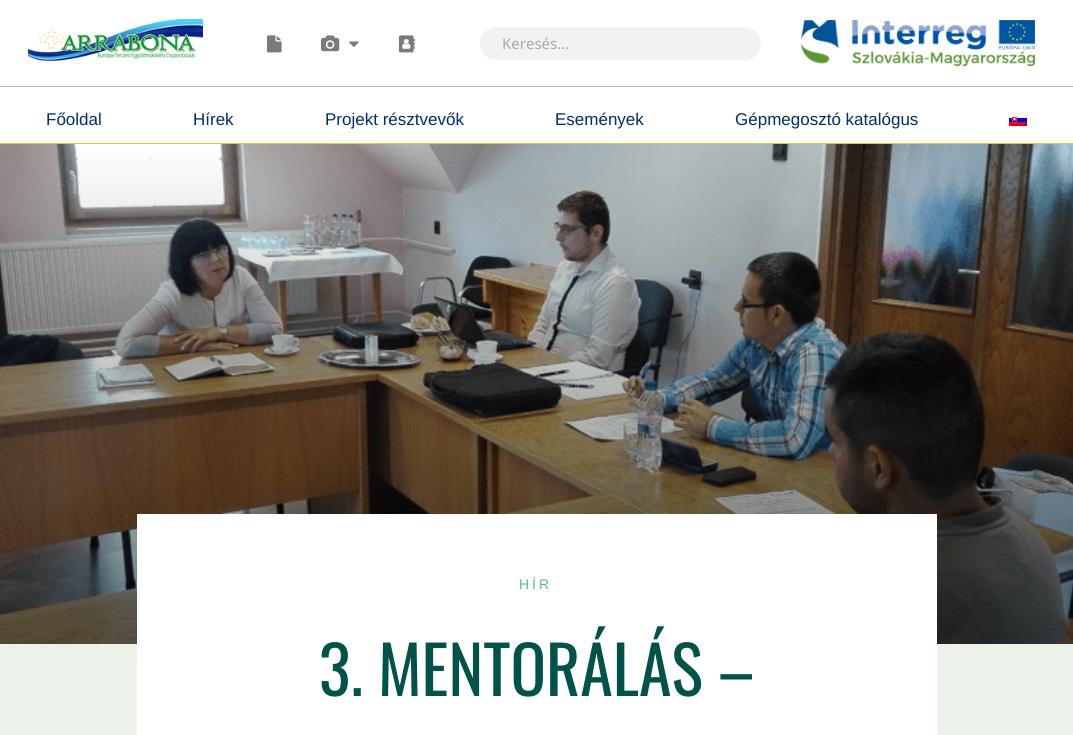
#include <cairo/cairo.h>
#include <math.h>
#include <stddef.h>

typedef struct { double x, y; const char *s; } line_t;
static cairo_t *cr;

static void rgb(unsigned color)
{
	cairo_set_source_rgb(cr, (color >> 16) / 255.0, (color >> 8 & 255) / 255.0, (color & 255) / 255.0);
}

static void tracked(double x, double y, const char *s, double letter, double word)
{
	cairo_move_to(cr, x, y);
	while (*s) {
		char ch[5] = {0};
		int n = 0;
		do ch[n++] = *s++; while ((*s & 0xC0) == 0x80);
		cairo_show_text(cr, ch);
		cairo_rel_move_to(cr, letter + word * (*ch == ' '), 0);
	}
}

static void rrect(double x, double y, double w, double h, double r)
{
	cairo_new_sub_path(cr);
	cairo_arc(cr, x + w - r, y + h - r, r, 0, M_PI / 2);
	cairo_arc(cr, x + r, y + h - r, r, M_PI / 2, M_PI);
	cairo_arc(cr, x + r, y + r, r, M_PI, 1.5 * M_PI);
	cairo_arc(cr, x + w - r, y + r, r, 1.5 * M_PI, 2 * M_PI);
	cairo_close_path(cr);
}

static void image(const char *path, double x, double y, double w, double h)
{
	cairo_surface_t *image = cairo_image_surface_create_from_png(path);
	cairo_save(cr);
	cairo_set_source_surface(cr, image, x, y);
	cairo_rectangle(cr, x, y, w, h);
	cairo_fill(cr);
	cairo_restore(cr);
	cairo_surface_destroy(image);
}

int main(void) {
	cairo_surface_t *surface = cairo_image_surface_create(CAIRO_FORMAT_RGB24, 1073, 735);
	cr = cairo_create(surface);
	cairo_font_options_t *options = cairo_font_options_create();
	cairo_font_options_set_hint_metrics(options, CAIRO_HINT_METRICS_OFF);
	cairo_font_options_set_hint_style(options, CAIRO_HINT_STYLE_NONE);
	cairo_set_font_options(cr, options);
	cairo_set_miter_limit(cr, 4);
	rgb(0xecf1e9);
	cairo_paint(cr);
	rgb(0xffffff);
	cairo_rectangle(cr, 0, 0, 1073, 143);
	cairo_fill(cr);
	rgb(0xb8b8b8);
	cairo_rectangle(cr, 0, 86, 1073, 1);
	cairo_fill(cr);
	image("img/1.png", 28, 19, 175, 43);
	image("img/2.png", 267, 35, 15, 18);
	image("img/3.png", 321, 35, 19, 17);
	image("img/4.png", 349, 41, 10, 6);
	image("img/5.png", 399, 35, 16, 18);
	rgb(0xf1f2f3);
	rrect(480, 27, 281, 33, 16.5);
	cairo_fill(cr);
	image("img/6.png", 801, 20, 234, 46);
	rgb(0xebca41);
	cairo_rectangle(cr, 0, 143, 1073, 1);
	cairo_fill(cr);
	image("img/7.png", 1009, 116, 18, 10);
	image("img/8.png", 0, 144, 1073, 500);
	rgb(0xffffff);
	cairo_rectangle(cr, 137, 514, 800, 221);
	cairo_fill(cr);
	cairo_select_font_face(cr, "Noto Sans", CAIRO_FONT_SLANT_NORMAL, CAIRO_FONT_WEIGHT_NORMAL);
	cairo_set_font_size(cr, 15);
	rgb(0xaaaaaa);
	cairo_move_to(cr, 502, 49);
	cairo_show_text(cr, "Keresés...");
	cairo_select_font_face(cr, "Liberation Sans", CAIRO_FONT_SLANT_NORMAL, CAIRO_FONT_WEIGHT_NORMAL);
	cairo_set_font_size(cr, 17);
	rgb(0x002f6c);
	{
		static const line_t items[] = {
			{46, 125, "Főoldal"},
			{193, 125, "Hírek"},
			{325, 125, "Projekt résztvevők"},
			{555, 125, "Események"},
			{735, 125, "Gépmegosztó katalógus"},
		};
		for (size_t i = 0; i < sizeof items / sizeof *items; i++) {
			cairo_move_to(cr, items[i].x, items[i].y);
			cairo_show_text(cr, items[i].s);
		}
	}
	cairo_set_font_size(cr, 14);
	rgb(0x57bc90);
	tracked(519, 589, "HÍR", 3, 0);
	cairo_select_font_face(cr, "Oswald", CAIRO_FONT_SLANT_NORMAL, CAIRO_FONT_WEIGHT_NORMAL);
	cairo_set_font_size(cr, 66);
	rgb(0x015249);
	cairo_move_to(cr, 319, 696);
	cairo_show_text(cr, "3. MENTORÁLÁS –");
	cairo_surface_write_to_png(surface, "page.png");
	cairo_font_options_destroy(options);
	cairo_destroy(cr);
	cairo_surface_destroy(surface);
	return 0;
}
